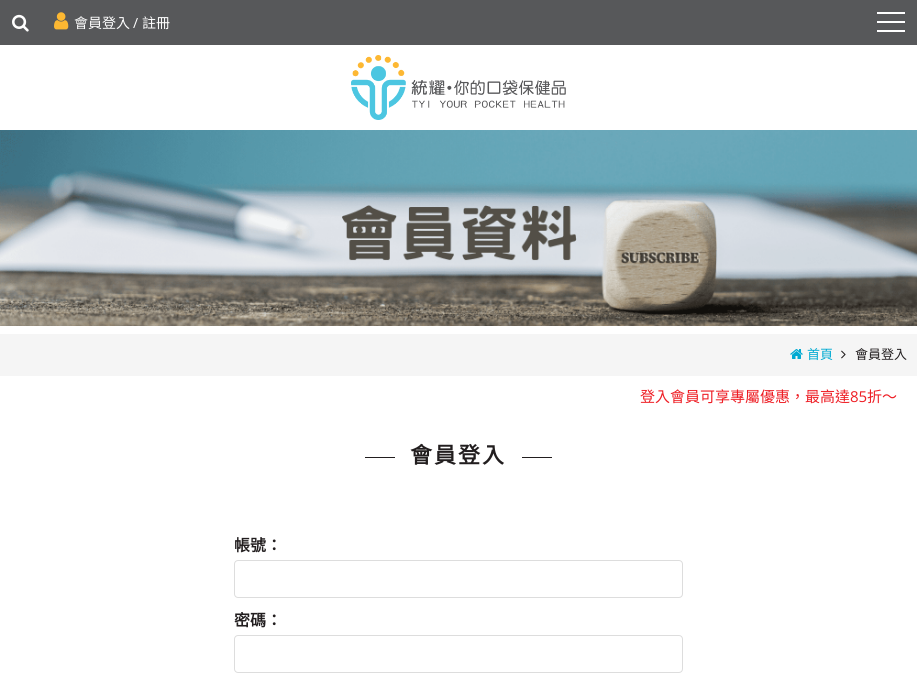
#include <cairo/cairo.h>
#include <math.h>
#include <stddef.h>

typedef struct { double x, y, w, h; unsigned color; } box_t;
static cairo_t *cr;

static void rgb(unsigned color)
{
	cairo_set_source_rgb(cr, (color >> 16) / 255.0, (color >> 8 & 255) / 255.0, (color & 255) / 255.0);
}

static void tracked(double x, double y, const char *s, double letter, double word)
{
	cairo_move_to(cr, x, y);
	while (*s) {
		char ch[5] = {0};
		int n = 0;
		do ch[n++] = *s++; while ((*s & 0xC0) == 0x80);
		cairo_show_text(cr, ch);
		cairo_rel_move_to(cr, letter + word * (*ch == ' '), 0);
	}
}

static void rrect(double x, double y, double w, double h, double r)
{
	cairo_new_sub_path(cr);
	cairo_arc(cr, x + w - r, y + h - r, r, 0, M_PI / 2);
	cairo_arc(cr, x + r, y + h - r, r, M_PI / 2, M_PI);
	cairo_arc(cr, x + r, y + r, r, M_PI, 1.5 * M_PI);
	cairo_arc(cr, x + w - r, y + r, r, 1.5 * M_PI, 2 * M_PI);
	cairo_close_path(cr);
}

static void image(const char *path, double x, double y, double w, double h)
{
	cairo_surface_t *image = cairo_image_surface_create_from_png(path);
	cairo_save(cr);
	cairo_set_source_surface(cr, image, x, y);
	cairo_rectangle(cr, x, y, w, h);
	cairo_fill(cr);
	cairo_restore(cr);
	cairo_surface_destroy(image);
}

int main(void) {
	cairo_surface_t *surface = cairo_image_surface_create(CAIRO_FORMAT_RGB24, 917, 675);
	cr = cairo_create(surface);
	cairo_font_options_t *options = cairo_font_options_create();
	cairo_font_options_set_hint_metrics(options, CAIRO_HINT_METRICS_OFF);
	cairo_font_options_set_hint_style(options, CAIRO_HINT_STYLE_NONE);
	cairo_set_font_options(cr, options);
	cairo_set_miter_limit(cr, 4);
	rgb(0xffffff);
	cairo_paint(cr);
	rgb(0x57585a);
	cairo_rectangle(cr, 0, 0, 917, 45);
	cairo_fill(cr);
	image("img/1.png", 12, 14, 17, 18);
	image("img/2.png", 54, 12, 15, 18);
	{
		static const box_t items[] = {
			{877, 21, 28, 2, 0xffffff},
			{877, 12, 28, 2, 0xffffff},
			{877, 30, 28, 2, 0xffffff},
		};
		for (size_t i = 0; i < sizeof items / sizeof *items; i++) {
			rgb(items[i].color);
			cairo_rectangle(cr, items[i].x, items[i].y, items[i].w, items[i].h);
			cairo_fill(cr);
		}
	}
	image("img/3.png", 351, 55, 215, 65);
	image("img/4.png", 0, 130, 917, 196);
	rgb(0xf5f5f5);
	cairo_rectangle(cr, 0, 334, 917, 42);
	cairo_fill(cr);
	image("img/5.png", 790, 349, 13, 10);
	image("img/6.png", 841, 350, 5, 9);
	rgb(0x221e1f);
	cairo_rectangle(cr, 365, 457, 30, 1);
	cairo_fill(cr);
	cairo_rectangle(cr, 522, 457, 30, 1);
	cairo_fill(cr);
	rrect(234.5, 560.5, 448, 37, 3.5);
	rgb(0xdddddd);
	cairo_set_line_width(cr, 1);
	cairo_stroke(cr);
	rrect(234.5, 635.5, 448, 37, 3.5);
	cairo_stroke(cr);
	cairo_select_font_face(cr, "Noto Sans CJK TC", CAIRO_FONT_SLANT_NORMAL, CAIRO_FONT_WEIGHT_NORMAL);
	cairo_set_font_size(cr, 14);
	rgb(0xffffff);
	cairo_move_to(cr, 74, 28);
	cairo_show_text(cr, "會員登入");
	cairo_select_font_face(cr, "Open Sans", CAIRO_FONT_SLANT_NORMAL, CAIRO_FONT_WEIGHT_NORMAL);
	cairo_move_to(cr, 133, 28);
	cairo_show_text(cr, "/");
	cairo_select_font_face(cr, "Noto Sans CJK TC", CAIRO_FONT_SLANT_NORMAL, CAIRO_FONT_WEIGHT_NORMAL);
	cairo_move_to(cr, 142, 28);
	cairo_show_text(cr, "註冊");
	cairo_set_font_size(cr, 13);
	rgb(0x00aad2);
	cairo_move_to(cr, 807, 359);
	cairo_show_text(cr, "首頁");
	rgb(0x221e1f);
	cairo_move_to(cr, 855, 359);
	cairo_show_text(cr, "會員登入");
	cairo_set_font_size(cr, 15);
	rgb(0xee1d24);
	cairo_move_to(cr, 640, 402);
	cairo_show_text(cr, "登入會員可享專屬優惠，最高達");
	cairo_select_font_face(cr, "Open Sans", CAIRO_FONT_SLANT_NORMAL, CAIRO_FONT_WEIGHT_NORMAL);
	cairo_move_to(cr, 850, 402);
	cairo_show_text(cr, "85");
	cairo_select_font_face(cr, "Noto Sans CJK TC", CAIRO_FONT_SLANT_NORMAL, CAIRO_FONT_WEIGHT_NORMAL);
	cairo_move_to(cr, 867, 402);
	cairo_show_text(cr, "折～");
	cairo_select_font_face(cr, "Noto Sans CJK TC", CAIRO_FONT_SLANT_NORMAL, CAIRO_FONT_WEIGHT_BOLD);
	cairo_set_font_size(cr, 22);
	rgb(0x221e1f);
	tracked(410, 463, "會員登入", 2, 0);
	cairo_set_font_size(cr, 16);
	cairo_move_to(cr, 234, 551);
	cairo_show_text(cr, "帳號：");
	cairo_move_to(cr, 234, 626);
	cairo_show_text(cr, "密碼：");
	cairo_surface_write_to_png(surface, "page.png");
	cairo_font_options_destroy(options);
	cairo_destroy(cr);
	cairo_surface_destroy(surface);
	return 0;
}
